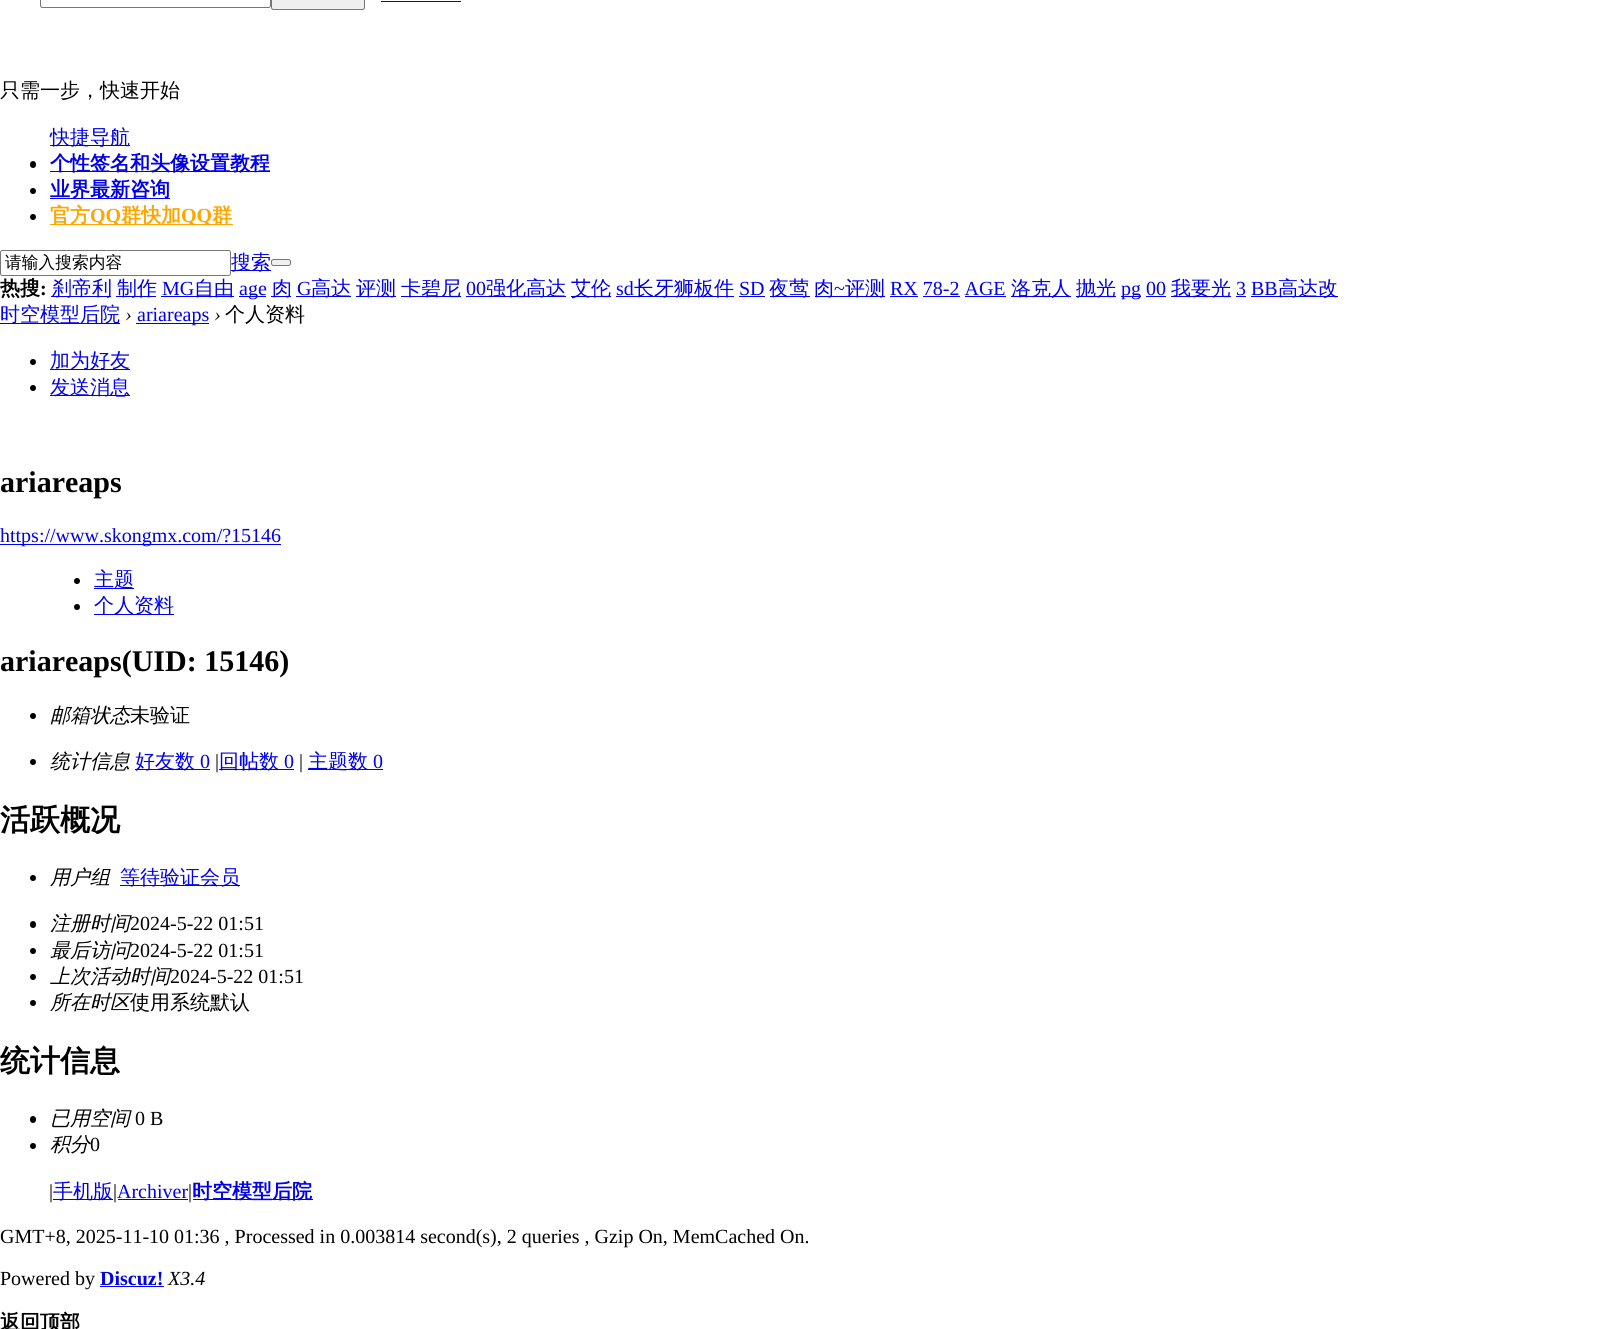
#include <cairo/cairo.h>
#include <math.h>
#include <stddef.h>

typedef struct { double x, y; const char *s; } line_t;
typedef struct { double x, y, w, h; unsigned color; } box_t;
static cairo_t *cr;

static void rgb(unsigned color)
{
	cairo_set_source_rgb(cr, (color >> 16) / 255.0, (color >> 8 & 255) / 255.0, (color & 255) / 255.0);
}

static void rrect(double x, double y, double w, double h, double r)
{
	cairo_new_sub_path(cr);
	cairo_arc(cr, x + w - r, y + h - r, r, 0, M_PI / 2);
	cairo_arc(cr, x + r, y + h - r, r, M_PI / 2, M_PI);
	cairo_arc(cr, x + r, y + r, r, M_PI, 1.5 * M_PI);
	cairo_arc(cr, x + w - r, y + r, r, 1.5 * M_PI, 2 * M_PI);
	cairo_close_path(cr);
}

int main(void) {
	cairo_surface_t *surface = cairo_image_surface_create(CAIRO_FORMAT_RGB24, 1618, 1329);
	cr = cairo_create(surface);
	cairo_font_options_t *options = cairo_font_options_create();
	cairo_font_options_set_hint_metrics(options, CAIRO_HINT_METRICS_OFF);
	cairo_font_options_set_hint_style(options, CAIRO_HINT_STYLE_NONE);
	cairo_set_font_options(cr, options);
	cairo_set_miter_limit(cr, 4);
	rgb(0xffffff);
	cairo_paint(cr);
	rrect(40.5, -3.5, 230, 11, 2);
	rgb(0x767676);
	cairo_set_line_width(cr, 1);
	cairo_stroke(cr);
	rgb(0xefefef);
	rrect(271.5, -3.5, 93, 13, 2);
	cairo_fill_preserve(cr);
	rgb(0x767676);
	cairo_stroke(cr);
	rgb(0x0000ee);
	cairo_rectangle(cr, 381, 1, 80, 1);
	cairo_fill(cr);
	cairo_rectangle(cr, 50, 145, 80, 1);
	cairo_fill(cr);
	rgb(0x000000);
	rrect(30, 161, 6, 7, 3);
	cairo_fill(cr);
	rgb(0x0000ee);
	cairo_rectangle(cr, 50, 171, 220, 1);
	cairo_fill(cr);
	rgb(0x000000);
	cairo_arc(cr, 33, 191, 3, 0, 2 * M_PI);
	cairo_fill(cr);
	rgb(0x0000ee);
	cairo_rectangle(cr, 50, 198, 120, 1);
	cairo_fill(cr);
	rgb(0x000000);
	cairo_arc(cr, 33, 217, 3, 0, 2 * M_PI);
	cairo_fill(cr);
	rgb(0xffa500);
	cairo_rectangle(cr, 50, 224, 183, 1);
	cairo_fill(cr);
	rrect(0.5, 250.5, 230, 25, 2);
	rgb(0x767676);
	cairo_stroke(cr);
	rgb(0x0000ee);
	cairo_rectangle(cr, 231, 270, 40, 1);
	cairo_fill(cr);
	rgb(0xefefef);
	rrect(271.5, 259.5, 19, 6, 2);
	cairo_fill_preserve(cr);
	rgb(0x767676);
	cairo_stroke(cr);
	{
		static const box_t items[] = {
			{51, 296, 60, 1, 0x0000ee},
			{116, 296, 40, 1, 0x0000ee},
			{161, 296, 73, 1, 0x0000ee},
			{239, 296, 27, 1, 0x0000ee},
			{271, 296, 20, 1, 0x0000ee},
			{296, 296, 55, 1, 0x0000ee},
			{356, 296, 40, 1, 0x0000ee},
			{401, 296, 60, 1, 0x0000ee},
			{466, 296, 100, 1, 0x0000ee},
			{571, 296, 40, 1, 0x0000ee},
			{616, 296, 118, 1, 0x0000ee},
			{739, 296, 26, 1, 0x0000ee},
			{770, 296, 40, 1, 0x0000ee},
			{815, 296, 70, 1, 0x0000ee},
			{890, 296, 28, 1, 0x0000ee},
			{1011, 296, 60, 1, 0x0000ee},
			{1076, 296, 40, 1, 0x0000ee},
			{1121, 296, 20, 1, 0x0000ee},
			{1171, 296, 60, 1, 0x0000ee},
			{1236, 296, 10, 1, 0x0000ee},
			{1251, 296, 87, 1, 0x0000ee},
			{923, 296, 37, 1, 0x0000ee},
			{965, 296, 41, 1, 0x0000ee},
			{1146, 296, 20, 1, 0x0000ee},
			{0, 323, 120, 1, 0x0000ee},
			{136, 323, 73, 1, 0x0000ee},
		};
		for (size_t i = 0; i < sizeof items / sizeof *items; i++) {
			rgb(items[i].color);
			cairo_rectangle(cr, items[i].x, items[i].y, items[i].w, items[i].h);
			cairo_fill(cr);
		}
	}
	rgb(0x000000);
	cairo_arc(cr, 33, 362, 3, 0, 2 * M_PI);
	cairo_fill(cr);
	rgb(0x0000ee);
	cairo_rectangle(cr, 50, 369, 80, 1);
	cairo_fill(cr);
	rgb(0x000000);
	cairo_arc(cr, 33, 388, 3, 0, 2 * M_PI);
	cairo_fill(cr);
	rgb(0x0000ee);
	cairo_rectangle(cr, 50, 395, 80, 1);
	cairo_fill(cr);
	cairo_rectangle(cr, 0, 544, 281, 1);
	cairo_fill(cr);
	rgb(0x000000);
	cairo_arc(cr, 77, 581, 3, 0, 2 * M_PI);
	cairo_fill(cr);
	rgb(0x0000ee);
	cairo_rectangle(cr, 94, 588, 40, 1);
	cairo_fill(cr);
	rgb(0x000000);
	cairo_arc(cr, 77, 607, 3, 0, 2 * M_PI);
	cairo_fill(cr);
	rgb(0x0000ee);
	cairo_rectangle(cr, 94, 614, 80, 1);
	cairo_fill(cr);
	rgb(0x000000);
	cairo_arc(cr, 33, 716, 3, 0, 2 * M_PI);
	cairo_fill(cr);
	cairo_arc(cr, 33, 762, 3, 0, 2 * M_PI);
	cairo_fill(cr);
	{
		static const box_t items[] = {
			{135, 769, 75, 1, 0x0000ee},
			{219, 769, 75, 1, 0x0000ee},
			{308, 769, 75, 1, 0x0000ee},
		};
		for (size_t i = 0; i < sizeof items / sizeof *items; i++) {
			rgb(items[i].color);
			cairo_rectangle(cr, items[i].x, items[i].y, items[i].w, items[i].h);
			cairo_fill(cr);
		}
	}
	rgb(0x000000);
	cairo_arc(cr, 33, 878, 3, 0, 2 * M_PI);
	cairo_fill(cr);
	rgb(0x0000ee);
	cairo_rectangle(cr, 120, 885, 120, 1);
	cairo_fill(cr);
	rgb(0x000000);
	rrect(30, 921, 6, 7, 3);
	cairo_fill(cr);
	cairo_arc(cr, 33, 951, 3, 0, 2 * M_PI);
	cairo_fill(cr);
	cairo_arc(cr, 33, 977, 3, 0, 2 * M_PI);
	cairo_fill(cr);
	cairo_arc(cr, 33, 1003, 3, 0, 2 * M_PI);
	cairo_fill(cr);
	rrect(30, 1116, 6, 7, 3);
	cairo_fill(cr);
	cairo_arc(cr, 33, 1146, 3, 0, 2 * M_PI);
	cairo_fill(cr);
	{
		static const box_t items[] = {
			{53, 1199, 60, 1, 0x0000ee},
			{118, 1199, 70, 1, 0x0000ee},
			{193, 1199, 120, 1, 0x0000ee},
			{100, 1286, 64, 1, 0x0000ee},
		};
		for (size_t i = 0; i < sizeof items / sizeof *items; i++) {
			rgb(items[i].color);
			cairo_rectangle(cr, items[i].x, items[i].y, items[i].w, items[i].h);
			cairo_fill(cr);
		}
	}
	cairo_select_font_face(cr, "WenQuanYi Zen Hei Medium", CAIRO_FONT_SLANT_NORMAL, CAIRO_FONT_WEIGHT_NORMAL);
	cairo_set_font_size(cr, 20);
	rgb(0x000000);
	cairo_move_to(cr, 0, 97);
	cairo_show_text(cr, "只需一步，快速开始");
	rgb(0x0000ee);
	cairo_move_to(cr, 50, 144);
	cairo_show_text(cr, "快捷导航");
	cairo_select_font_face(cr, "WenQuanYi Zen Hei", CAIRO_FONT_SLANT_NORMAL, CAIRO_FONT_WEIGHT_BOLD);
	cairo_move_to(cr, 50, 170);
	cairo_show_text(cr, "个性签名和头像设置教程");
	cairo_move_to(cr, 50, 196);
	cairo_show_text(cr, "业界最新咨询");
	rgb(0xffa500);
	cairo_move_to(cr, 50, 222);
	cairo_show_text(cr, "官方");
	cairo_select_font_face(cr, "Liberation Serif", CAIRO_FONT_SLANT_NORMAL, CAIRO_FONT_WEIGHT_BOLD);
	cairo_move_to(cr, 90, 222);
	cairo_show_text(cr, "QQ");
	cairo_select_font_face(cr, "WenQuanYi Zen Hei", CAIRO_FONT_SLANT_NORMAL, CAIRO_FONT_WEIGHT_BOLD);
	cairo_move_to(cr, 121, 222);
	cairo_show_text(cr, "群快加");
	cairo_select_font_face(cr, "Liberation Serif", CAIRO_FONT_SLANT_NORMAL, CAIRO_FONT_WEIGHT_BOLD);
	cairo_move_to(cr, 181, 222);
	cairo_show_text(cr, "QQ");
	cairo_select_font_face(cr, "WenQuanYi Zen Hei", CAIRO_FONT_SLANT_NORMAL, CAIRO_FONT_WEIGHT_BOLD);
	cairo_move_to(cr, 212, 222);
	cairo_show_text(cr, "群");
	cairo_select_font_face(cr, "WenQuanYi Zen Hei Medium", CAIRO_FONT_SLANT_NORMAL, CAIRO_FONT_WEIGHT_NORMAL);
	cairo_set_font_size(cr, 16.75);
	rgb(0x000000);
	cairo_move_to(cr, 5, 268);
	cairo_show_text(cr, "请输入搜索内容");
	cairo_set_font_size(cr, 20);
	rgb(0x0000ee);
	cairo_move_to(cr, 231, 269);
	cairo_show_text(cr, "搜索");
	cairo_select_font_face(cr, "WenQuanYi Zen Hei", CAIRO_FONT_SLANT_NORMAL, CAIRO_FONT_WEIGHT_BOLD);
	rgb(0x000000);
	cairo_move_to(cr, 0, 295);
	cairo_show_text(cr, "热搜");
	cairo_select_font_face(cr, "Liberation Serif", CAIRO_FONT_SLANT_NORMAL, CAIRO_FONT_WEIGHT_BOLD);
	cairo_move_to(cr, 40, 295);
	cairo_show_text(cr, ":");
	cairo_select_font_face(cr, "WenQuanYi Zen Hei Medium", CAIRO_FONT_SLANT_NORMAL, CAIRO_FONT_WEIGHT_NORMAL);
	rgb(0x0000ee);
	cairo_move_to(cr, 52, 295);
	cairo_show_text(cr, "刹帝利");
	cairo_move_to(cr, 117, 295);
	cairo_show_text(cr, "制作");
	cairo_select_font_face(cr, "Liberation Serif", CAIRO_FONT_SLANT_NORMAL, CAIRO_FONT_WEIGHT_NORMAL);
	cairo_move_to(cr, 162, 295);
	cairo_show_text(cr, "MG");
	cairo_select_font_face(cr, "WenQuanYi Zen Hei Medium", CAIRO_FONT_SLANT_NORMAL, CAIRO_FONT_WEIGHT_NORMAL);
	cairo_move_to(cr, 194, 295);
	cairo_show_text(cr, "自由");
	cairo_select_font_face(cr, "Liberation Serif", CAIRO_FONT_SLANT_NORMAL, CAIRO_FONT_WEIGHT_NORMAL);
	cairo_move_to(cr, 239, 295);
	cairo_show_text(cr, "age");
	cairo_select_font_face(cr, "WenQuanYi Zen Hei Medium", CAIRO_FONT_SLANT_NORMAL, CAIRO_FONT_WEIGHT_NORMAL);
	cairo_move_to(cr, 272, 295);
	cairo_show_text(cr, "肉");
	cairo_select_font_face(cr, "Liberation Serif", CAIRO_FONT_SLANT_NORMAL, CAIRO_FONT_WEIGHT_NORMAL);
	cairo_move_to(cr, 297, 295);
	cairo_show_text(cr, "G");
	cairo_select_font_face(cr, "WenQuanYi Zen Hei Medium", CAIRO_FONT_SLANT_NORMAL, CAIRO_FONT_WEIGHT_NORMAL);
	{
		static const line_t items[] = {
			{311, 295, "高达"},
			{356, 295, "评测"},
			{401, 295, "卡碧尼"},
		};
		for (size_t i = 0; i < sizeof items / sizeof *items; i++) {
			cairo_move_to(cr, items[i].x, items[i].y);
			cairo_show_text(cr, items[i].s);
		}
	}
	cairo_select_font_face(cr, "Liberation Serif", CAIRO_FONT_SLANT_NORMAL, CAIRO_FONT_WEIGHT_NORMAL);
	cairo_move_to(cr, 466, 295);
	cairo_show_text(cr, "00");
	cairo_select_font_face(cr, "WenQuanYi Zen Hei Medium", CAIRO_FONT_SLANT_NORMAL, CAIRO_FONT_WEIGHT_NORMAL);
	cairo_move_to(cr, 486, 295);
	cairo_show_text(cr, "强化高达");
	cairo_move_to(cr, 571, 295);
	cairo_show_text(cr, "艾伦");
	cairo_select_font_face(cr, "Liberation Serif", CAIRO_FONT_SLANT_NORMAL, CAIRO_FONT_WEIGHT_NORMAL);
	cairo_move_to(cr, 616, 295);
	cairo_show_text(cr, "sd");
	cairo_select_font_face(cr, "WenQuanYi Zen Hei Medium", CAIRO_FONT_SLANT_NORMAL, CAIRO_FONT_WEIGHT_NORMAL);
	cairo_move_to(cr, 634, 295);
	cairo_show_text(cr, "长牙狮板件");
	cairo_select_font_face(cr, "Liberation Serif", CAIRO_FONT_SLANT_NORMAL, CAIRO_FONT_WEIGHT_NORMAL);
	cairo_move_to(cr, 739, 295);
	cairo_show_text(cr, "SD");
	cairo_select_font_face(cr, "WenQuanYi Zen Hei Medium", CAIRO_FONT_SLANT_NORMAL, CAIRO_FONT_WEIGHT_NORMAL);
	cairo_move_to(cr, 769, 295);
	cairo_show_text(cr, "夜莺");
	cairo_move_to(cr, 814, 295);
	cairo_show_text(cr, "肉");
	cairo_select_font_face(cr, "Liberation Serif", CAIRO_FONT_SLANT_NORMAL, CAIRO_FONT_WEIGHT_NORMAL);
	cairo_move_to(cr, 834, 295);
	cairo_show_text(cr, "~");
	cairo_select_font_face(cr, "WenQuanYi Zen Hei Medium", CAIRO_FONT_SLANT_NORMAL, CAIRO_FONT_WEIGHT_NORMAL);
	cairo_move_to(cr, 845, 295);
	cairo_show_text(cr, "评测");
	cairo_select_font_face(cr, "Liberation Serif", CAIRO_FONT_SLANT_NORMAL, CAIRO_FONT_WEIGHT_NORMAL);
	cairo_move_to(cr, 890, 295);
	cairo_show_text(cr, "RX 78-2 AGE");
	cairo_select_font_face(cr, "WenQuanYi Zen Hei Medium", CAIRO_FONT_SLANT_NORMAL, CAIRO_FONT_WEIGHT_NORMAL);
	cairo_move_to(cr, 1011, 295);
	cairo_show_text(cr, "洛克人");
	cairo_move_to(cr, 1076, 295);
	cairo_show_text(cr, "抛光");
	cairo_select_font_face(cr, "Liberation Serif", CAIRO_FONT_SLANT_NORMAL, CAIRO_FONT_WEIGHT_NORMAL);
	cairo_move_to(cr, 1121, 295);
	cairo_show_text(cr, "pg 00");
	cairo_select_font_face(cr, "WenQuanYi Zen Hei Medium", CAIRO_FONT_SLANT_NORMAL, CAIRO_FONT_WEIGHT_NORMAL);
	cairo_move_to(cr, 1171, 295);
	cairo_show_text(cr, "我要光");
	cairo_select_font_face(cr, "Liberation Serif", CAIRO_FONT_SLANT_NORMAL, CAIRO_FONT_WEIGHT_NORMAL);
	cairo_move_to(cr, 1236, 295);
	cairo_show_text(cr, "3 BB");
	cairo_select_font_face(cr, "WenQuanYi Zen Hei Medium", CAIRO_FONT_SLANT_NORMAL, CAIRO_FONT_WEIGHT_NORMAL);
	cairo_move_to(cr, 1278, 295);
	cairo_show_text(cr, "高达改");
	cairo_move_to(cr, 0, 321);
	cairo_show_text(cr, "时空模型后院");
	cairo_select_font_face(cr, "Liberation Serif", CAIRO_FONT_SLANT_ITALIC, CAIRO_FONT_WEIGHT_NORMAL);
	rgb(0x000000);
	cairo_move_to(cr, 125, 321);
	cairo_show_text(cr, "›");
	cairo_select_font_face(cr, "Liberation Serif", CAIRO_FONT_SLANT_NORMAL, CAIRO_FONT_WEIGHT_NORMAL);
	rgb(0x0000ee);
	cairo_move_to(cr, 137, 321);
	cairo_show_text(cr, "ariareaps");
	cairo_select_font_face(cr, "Liberation Serif", CAIRO_FONT_SLANT_ITALIC, CAIRO_FONT_WEIGHT_NORMAL);
	rgb(0x000000);
	cairo_move_to(cr, 214, 321);
	cairo_show_text(cr, "›");
	cairo_select_font_face(cr, "WenQuanYi Zen Hei Medium", CAIRO_FONT_SLANT_NORMAL, CAIRO_FONT_WEIGHT_NORMAL);
	cairo_move_to(cr, 225, 321);
	cairo_show_text(cr, "个人资料");
	rgb(0x0000ee);
	cairo_move_to(cr, 50, 367);
	cairo_show_text(cr, "加为好友");
	cairo_move_to(cr, 50, 394);
	cairo_show_text(cr, "发送消息");
	cairo_select_font_face(cr, "Liberation Serif", CAIRO_FONT_SLANT_NORMAL, CAIRO_FONT_WEIGHT_BOLD);
	cairo_set_font_size(cr, 30);
	rgb(0x000000);
	cairo_move_to(cr, 0, 492);
	cairo_show_text(cr, "ariareaps");
	cairo_select_font_face(cr, "Liberation Serif", CAIRO_FONT_SLANT_NORMAL, CAIRO_FONT_WEIGHT_NORMAL);
	cairo_set_font_size(cr, 20);
	rgb(0x0000ee);
	cairo_move_to(cr, 0, 542);
	cairo_show_text(cr, "https://www.skongmx.com/?15146");
	cairo_select_font_face(cr, "WenQuanYi Zen Hei Medium", CAIRO_FONT_SLANT_NORMAL, CAIRO_FONT_WEIGHT_NORMAL);
	cairo_move_to(cr, 94, 586);
	cairo_show_text(cr, "主题");
	cairo_move_to(cr, 94, 612);
	cairo_show_text(cr, "个人资料");
	cairo_select_font_face(cr, "Liberation Serif", CAIRO_FONT_SLANT_NORMAL, CAIRO_FONT_WEIGHT_BOLD);
	cairo_set_font_size(cr, 30);
	rgb(0x000000);
	cairo_move_to(cr, 0, 671);
	cairo_show_text(cr, "ariareaps(UID: 15146)");
	cairo_select_font_face(cr, "WenQuanYi Zen Hei Medium", CAIRO_FONT_SLANT_ITALIC, CAIRO_FONT_WEIGHT_NORMAL);
	cairo_set_font_size(cr, 20);
	cairo_move_to(cr, 50, 722);
	cairo_show_text(cr, "邮箱状态");
	cairo_select_font_face(cr, "WenQuanYi Zen Hei Medium", CAIRO_FONT_SLANT_NORMAL, CAIRO_FONT_WEIGHT_NORMAL);
	cairo_move_to(cr, 130, 722);
	cairo_show_text(cr, "未验证");
	cairo_select_font_face(cr, "WenQuanYi Zen Hei Medium", CAIRO_FONT_SLANT_ITALIC, CAIRO_FONT_WEIGHT_NORMAL);
	cairo_move_to(cr, 50, 768);
	cairo_show_text(cr, "统计信息");
	cairo_select_font_face(cr, "WenQuanYi Zen Hei Medium", CAIRO_FONT_SLANT_NORMAL, CAIRO_FONT_WEIGHT_NORMAL);
	rgb(0x0000ee);
	cairo_move_to(cr, 135, 768);
	cairo_show_text(cr, "好友数");
	cairo_select_font_face(cr, "Liberation Serif", CAIRO_FONT_SLANT_NORMAL, CAIRO_FONT_WEIGHT_NORMAL);
	cairo_move_to(cr, 200, 768);
	cairo_show_text(cr, "0");
	rgb(0x000000);
	cairo_move_to(cr, 215, 768);
	cairo_show_text(cr, "|");
	cairo_select_font_face(cr, "WenQuanYi Zen Hei Medium", CAIRO_FONT_SLANT_NORMAL, CAIRO_FONT_WEIGHT_NORMAL);
	rgb(0x0000ee);
	cairo_move_to(cr, 219, 768);
	cairo_show_text(cr, "回帖数");
	cairo_select_font_face(cr, "Liberation Serif", CAIRO_FONT_SLANT_NORMAL, CAIRO_FONT_WEIGHT_NORMAL);
	cairo_move_to(cr, 284, 768);
	cairo_show_text(cr, "0");
	rgb(0x000000);
	cairo_move_to(cr, 299, 768);
	cairo_show_text(cr, "|");
	cairo_select_font_face(cr, "WenQuanYi Zen Hei Medium", CAIRO_FONT_SLANT_NORMAL, CAIRO_FONT_WEIGHT_NORMAL);
	rgb(0x0000ee);
	cairo_move_to(cr, 308, 768);
	cairo_show_text(cr, "主题数");
	cairo_select_font_face(cr, "Liberation Serif", CAIRO_FONT_SLANT_NORMAL, CAIRO_FONT_WEIGHT_NORMAL);
	cairo_move_to(cr, 373, 768);
	cairo_show_text(cr, "0");
	cairo_select_font_face(cr, "WenQuanYi Zen Hei", CAIRO_FONT_SLANT_NORMAL, CAIRO_FONT_WEIGHT_BOLD);
	cairo_set_font_size(cr, 30);
	rgb(0x000000);
	cairo_move_to(cr, 0, 830);
	cairo_show_text(cr, "活跃概况");
	cairo_select_font_face(cr, "WenQuanYi Zen Hei Medium", CAIRO_FONT_SLANT_ITALIC, CAIRO_FONT_WEIGHT_NORMAL);
	cairo_set_font_size(cr, 20);
	cairo_move_to(cr, 50, 884);
	cairo_show_text(cr, "用户组");
	cairo_select_font_face(cr, "WenQuanYi Zen Hei Medium", CAIRO_FONT_SLANT_NORMAL, CAIRO_FONT_WEIGHT_NORMAL);
	rgb(0x0000ee);
	cairo_move_to(cr, 120, 884);
	cairo_show_text(cr, "等待验证会员");
	cairo_select_font_face(cr, "WenQuanYi Zen Hei Medium", CAIRO_FONT_SLANT_ITALIC, CAIRO_FONT_WEIGHT_NORMAL);
	rgb(0x000000);
	cairo_move_to(cr, 50, 930);
	cairo_show_text(cr, "注册时间");
	cairo_select_font_face(cr, "Liberation Serif", CAIRO_FONT_SLANT_NORMAL, CAIRO_FONT_WEIGHT_NORMAL);
	cairo_move_to(cr, 130, 930);
	cairo_show_text(cr, "2024-5-22 01:51");
	cairo_select_font_face(cr, "WenQuanYi Zen Hei Medium", CAIRO_FONT_SLANT_ITALIC, CAIRO_FONT_WEIGHT_NORMAL);
	cairo_move_to(cr, 50, 957);
	cairo_show_text(cr, "最后访问");
	cairo_select_font_face(cr, "Liberation Serif", CAIRO_FONT_SLANT_NORMAL, CAIRO_FONT_WEIGHT_NORMAL);
	cairo_move_to(cr, 130, 957);
	cairo_show_text(cr, "2024-5-22 01:51");
	cairo_select_font_face(cr, "WenQuanYi Zen Hei Medium", CAIRO_FONT_SLANT_ITALIC, CAIRO_FONT_WEIGHT_NORMAL);
	cairo_move_to(cr, 50, 983);
	cairo_show_text(cr, "上次活动时间");
	cairo_select_font_face(cr, "Liberation Serif", CAIRO_FONT_SLANT_NORMAL, CAIRO_FONT_WEIGHT_NORMAL);
	cairo_move_to(cr, 170, 983);
	cairo_show_text(cr, "2024-5-22 01:51");
	cairo_select_font_face(cr, "WenQuanYi Zen Hei Medium", CAIRO_FONT_SLANT_ITALIC, CAIRO_FONT_WEIGHT_NORMAL);
	cairo_move_to(cr, 50, 1009);
	cairo_show_text(cr, "所在时区");
	cairo_select_font_face(cr, "WenQuanYi Zen Hei Medium", CAIRO_FONT_SLANT_NORMAL, CAIRO_FONT_WEIGHT_NORMAL);
	cairo_move_to(cr, 130, 1009);
	cairo_show_text(cr, "使用系统默认");
	cairo_select_font_face(cr, "WenQuanYi Zen Hei", CAIRO_FONT_SLANT_NORMAL, CAIRO_FONT_WEIGHT_BOLD);
	cairo_set_font_size(cr, 30);
	cairo_move_to(cr, 0, 1071);
	cairo_show_text(cr, "统计信息");
	cairo_select_font_face(cr, "WenQuanYi Zen Hei Medium", CAIRO_FONT_SLANT_ITALIC, CAIRO_FONT_WEIGHT_NORMAL);
	cairo_set_font_size(cr, 20);
	cairo_move_to(cr, 50, 1125);
	cairo_show_text(cr, "已用空间");
	cairo_select_font_face(cr, "Liberation Serif", CAIRO_FONT_SLANT_NORMAL, CAIRO_FONT_WEIGHT_NORMAL);
	cairo_move_to(cr, 135, 1125);
	cairo_show_text(cr, "0 B");
	cairo_select_font_face(cr, "WenQuanYi Zen Hei Medium", CAIRO_FONT_SLANT_ITALIC, CAIRO_FONT_WEIGHT_NORMAL);
	cairo_move_to(cr, 50, 1151);
	cairo_show_text(cr, "积分");
	cairo_select_font_face(cr, "Liberation Serif", CAIRO_FONT_SLANT_NORMAL, CAIRO_FONT_WEIGHT_NORMAL);
	cairo_move_to(cr, 90, 1151);
	cairo_show_text(cr, "0");
	cairo_move_to(cr, 49, 1198);
	cairo_show_text(cr, "|");
	cairo_select_font_face(cr, "WenQuanYi Zen Hei Medium", CAIRO_FONT_SLANT_NORMAL, CAIRO_FONT_WEIGHT_NORMAL);
	rgb(0x0000ee);
	cairo_move_to(cr, 53, 1198);
	cairo_show_text(cr, "手机版");
	cairo_select_font_face(cr, "Liberation Serif", CAIRO_FONT_SLANT_NORMAL, CAIRO_FONT_WEIGHT_NORMAL);
	rgb(0x000000);
	cairo_move_to(cr, 113, 1198);
	cairo_show_text(cr, "|");
	rgb(0x0000ee);
	cairo_move_to(cr, 117, 1198);
	cairo_show_text(cr, "Archiver");
	rgb(0x000000);
	cairo_move_to(cr, 188, 1198);
	cairo_show_text(cr, "|");
	cairo_select_font_face(cr, "WenQuanYi Zen Hei", CAIRO_FONT_SLANT_NORMAL, CAIRO_FONT_WEIGHT_BOLD);
	rgb(0x0000ee);
	cairo_move_to(cr, 192, 1198);
	cairo_show_text(cr, "时空模型后院");
	cairo_select_font_face(cr, "Liberation Serif", CAIRO_FONT_SLANT_NORMAL, CAIRO_FONT_WEIGHT_NORMAL);
	rgb(0x000000);
	cairo_move_to(cr, 0, 1243);
	cairo_show_text(cr, "GMT+8, 2025-11-10 01:36 , Processed in 0.003814 second(s), 2 queries , Gzip On, MemCached On.");
	cairo_move_to(cr, 0, 1285);
	cairo_show_text(cr, "Powered by");
	cairo_select_font_face(cr, "Liberation Serif", CAIRO_FONT_SLANT_NORMAL, CAIRO_FONT_WEIGHT_BOLD);
	rgb(0x0000ee);
	cairo_move_to(cr, 100, 1285);
	cairo_show_text(cr, "Discuz!");
	cairo_select_font_face(cr, "Liberation Serif", CAIRO_FONT_SLANT_ITALIC, CAIRO_FONT_WEIGHT_NORMAL);
	rgb(0x000000);
	cairo_move_to(cr, 168, 1285);
	cairo_show_text(cr, "X3.4");
	cairo_select_font_face(cr, "WenQuanYi Zen Hei", CAIRO_FONT_SLANT_NORMAL, CAIRO_FONT_WEIGHT_BOLD);
	cairo_move_to(cr, 0, 1329);
	cairo_show_text(cr, "返回顶部");
	cairo_surface_write_to_png(surface, "page.png");
	cairo_font_options_destroy(options);
	cairo_destroy(cr);
	cairo_surface_destroy(surface);
	return 0;
}
